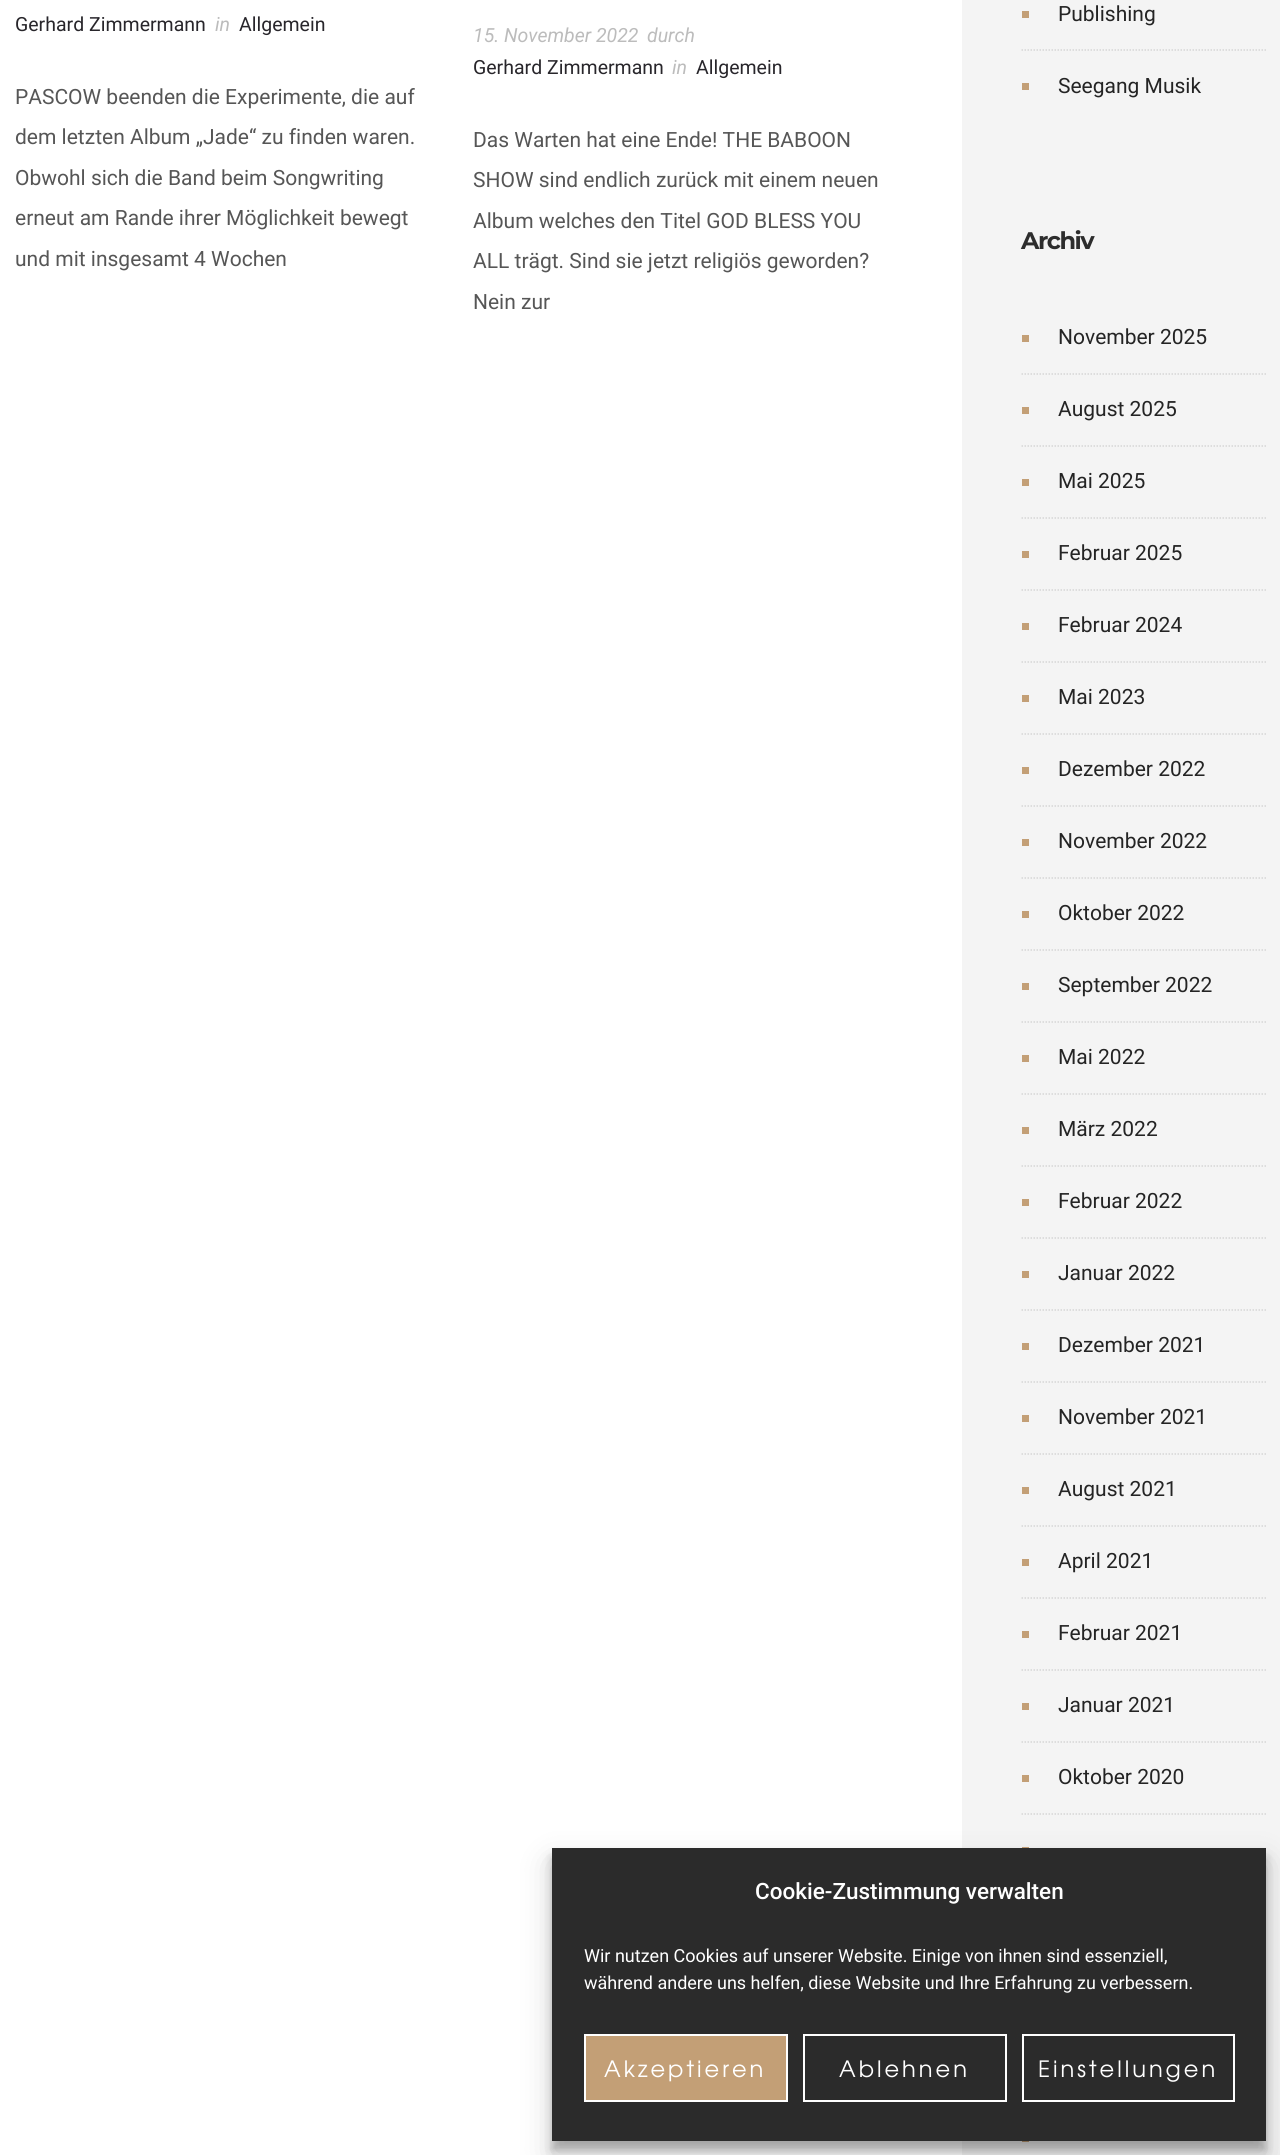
#include <cairo/cairo.h>
#include <math.h>
#include <stddef.h>

typedef struct { double x, y; const char *s; } line_t;
typedef struct { double x, y, w, h; unsigned color; } box_t;
static cairo_t *cr;

static void rgb(unsigned color)
{
	cairo_set_source_rgb(cr, (color >> 16) / 255.0, (color >> 8 & 255) / 255.0, (color & 255) / 255.0);
}

static void tracked(double x, double y, const char *s, double letter, double word)
{
	cairo_move_to(cr, x, y);
	while (*s) {
		char ch[5] = {0};
		int n = 0;
		do ch[n++] = *s++; while ((*s & 0xC0) == 0x80);
		cairo_show_text(cr, ch);
		cairo_rel_move_to(cr, letter + word * (*ch == ' '), 0);
	}
}

static void rrect(double x, double y, double w, double h, double r)
{
	cairo_new_sub_path(cr);
	cairo_arc(cr, x + w - r, y + h - r, r, 0, M_PI / 2);
	cairo_arc(cr, x + r, y + h - r, r, M_PI / 2, M_PI);
	cairo_arc(cr, x + r, y + r, r, M_PI, 1.5 * M_PI);
	cairo_arc(cr, x + w - r, y + r, r, 1.5 * M_PI, 2 * M_PI);
	cairo_close_path(cr);
}

static void soft_shadow(double x, double y, double w, double h, double r, double blur, double alpha)
{
	cairo_push_group_with_content(cr, CAIRO_CONTENT_ALPHA);
	cairo_set_operator(cr, CAIRO_OPERATOR_SOURCE);
	for (int i = 15; i >= -15 && fmin(w, h) + blur * i / 3 > 0; i -= 2) {
		double e = blur * i / 6;
		cairo_set_source_rgba(cr, 0, 0, 0, alpha * erfc((i - 1) / 8.5) / 2);
		rrect(x - e, y - e, w + 2 * e, h + 2 * e, fmax(0, fmin(r + e + blur * .6, fmin(w, h) / 2 + e)));
		cairo_fill(cr);
	}
	cairo_pattern_t *soft = cairo_pop_group(cr);
	cairo_mask(cr, soft);
	cairo_pattern_destroy(soft);
}

int main(void) {
	cairo_surface_t *surface = cairo_image_surface_create(CAIRO_FORMAT_RGB24, 1280, 2155);
	cr = cairo_create(surface);
	cairo_font_options_t *options = cairo_font_options_create();
	cairo_font_options_set_hint_metrics(options, CAIRO_HINT_METRICS_OFF);
	cairo_font_options_set_hint_style(options, CAIRO_HINT_STYLE_NONE);
	cairo_set_font_options(cr, options);
	cairo_set_miter_limit(cr, 4);
	rgb(0xffffff);
	cairo_paint(cr);
	rgb(0xf4f4f4);
	cairo_rectangle(cr, 962, 0, 318, 2155);
	cairo_fill(cr);
	cairo_new_path(cr);
	cairo_move_to(cr, 1021.5, 50);
	cairo_line_to(cr, 1266, 50);
	rgb(0xd6d6d6);
	cairo_set_line_width(cr, 1.5);
	cairo_set_dash(cr, (double[]){1.5, 1.5}, 2, 0);
	cairo_stroke(cr);
	rgb(0xc39f76);
	cairo_rectangle(cr, 1022, 11, 7, 7);
	cairo_fill(cr);
	cairo_rectangle(cr, 1022, 83, 7, 7);
	cairo_fill(cr);
	cairo_new_path(cr);
	cairo_move_to(cr, 1021.5, 374);
	cairo_line_to(cr, 1266, 374);
	rgb(0xd6d6d6);
	cairo_stroke(cr);
	rgb(0xc39f76);
	cairo_rectangle(cr, 1022, 335, 7, 7);
	cairo_fill(cr);
	cairo_new_path(cr);
	cairo_move_to(cr, 1021.5, 446);
	cairo_line_to(cr, 1266, 446);
	rgb(0xd6d6d6);
	cairo_stroke(cr);
	rgb(0xc39f76);
	cairo_rectangle(cr, 1022, 407, 7, 7);
	cairo_fill(cr);
	cairo_new_path(cr);
	cairo_move_to(cr, 1021.5, 518);
	cairo_line_to(cr, 1266, 518);
	rgb(0xd6d6d6);
	cairo_stroke(cr);
	rgb(0xc39f76);
	cairo_rectangle(cr, 1022, 479, 7, 7);
	cairo_fill(cr);
	cairo_new_path(cr);
	cairo_move_to(cr, 1021.5, 590);
	cairo_line_to(cr, 1266, 590);
	rgb(0xd6d6d6);
	cairo_stroke(cr);
	rgb(0xc39f76);
	cairo_rectangle(cr, 1022, 551, 7, 7);
	cairo_fill(cr);
	cairo_new_path(cr);
	cairo_move_to(cr, 1021.5, 662);
	cairo_line_to(cr, 1266, 662);
	rgb(0xd6d6d6);
	cairo_stroke(cr);
	rgb(0xc39f76);
	cairo_rectangle(cr, 1022, 623, 7, 7);
	cairo_fill(cr);
	cairo_new_path(cr);
	cairo_move_to(cr, 1021.5, 734);
	cairo_line_to(cr, 1266, 734);
	rgb(0xd6d6d6);
	cairo_stroke(cr);
	rgb(0xc39f76);
	cairo_rectangle(cr, 1022, 695, 7, 7);
	cairo_fill(cr);
	cairo_new_path(cr);
	cairo_move_to(cr, 1021.5, 806);
	cairo_line_to(cr, 1266, 806);
	rgb(0xd6d6d6);
	cairo_stroke(cr);
	rgb(0xc39f76);
	cairo_rectangle(cr, 1022, 767, 7, 7);
	cairo_fill(cr);
	cairo_new_path(cr);
	cairo_move_to(cr, 1021.5, 878);
	cairo_line_to(cr, 1266, 878);
	rgb(0xd6d6d6);
	cairo_stroke(cr);
	rgb(0xc39f76);
	cairo_rectangle(cr, 1022, 839, 7, 7);
	cairo_fill(cr);
	cairo_new_path(cr);
	cairo_move_to(cr, 1021.5, 950);
	cairo_line_to(cr, 1266, 950);
	rgb(0xd6d6d6);
	cairo_stroke(cr);
	rgb(0xc39f76);
	cairo_rectangle(cr, 1022, 911, 7, 7);
	cairo_fill(cr);
	cairo_new_path(cr);
	cairo_move_to(cr, 1021.5, 1022);
	cairo_line_to(cr, 1266, 1022);
	rgb(0xd6d6d6);
	cairo_stroke(cr);
	rgb(0xc39f76);
	cairo_rectangle(cr, 1022, 983, 7, 7);
	cairo_fill(cr);
	cairo_new_path(cr);
	cairo_move_to(cr, 1021.5, 1094);
	cairo_line_to(cr, 1266, 1094);
	rgb(0xd6d6d6);
	cairo_stroke(cr);
	rgb(0xc39f76);
	cairo_rectangle(cr, 1022, 1055, 7, 7);
	cairo_fill(cr);
	cairo_new_path(cr);
	cairo_move_to(cr, 1021.5, 1166);
	cairo_line_to(cr, 1266, 1166);
	rgb(0xd6d6d6);
	cairo_stroke(cr);
	rgb(0xc39f76);
	cairo_rectangle(cr, 1022, 1127, 7, 7);
	cairo_fill(cr);
	cairo_new_path(cr);
	cairo_move_to(cr, 1021.5, 1238);
	cairo_line_to(cr, 1266, 1238);
	rgb(0xd6d6d6);
	cairo_stroke(cr);
	rgb(0xc39f76);
	cairo_rectangle(cr, 1022, 1199, 7, 7);
	cairo_fill(cr);
	cairo_new_path(cr);
	cairo_move_to(cr, 1021.5, 1310);
	cairo_line_to(cr, 1266, 1310);
	rgb(0xd6d6d6);
	cairo_stroke(cr);
	rgb(0xc39f76);
	cairo_rectangle(cr, 1022, 1271, 7, 7);
	cairo_fill(cr);
	cairo_new_path(cr);
	cairo_move_to(cr, 1021.5, 1382);
	cairo_line_to(cr, 1266, 1382);
	rgb(0xd6d6d6);
	cairo_stroke(cr);
	rgb(0xc39f76);
	cairo_rectangle(cr, 1022, 1343, 7, 7);
	cairo_fill(cr);
	cairo_new_path(cr);
	cairo_move_to(cr, 1021.5, 1454);
	cairo_line_to(cr, 1266, 1454);
	rgb(0xd6d6d6);
	cairo_stroke(cr);
	rgb(0xc39f76);
	cairo_rectangle(cr, 1022, 1415, 7, 7);
	cairo_fill(cr);
	cairo_new_path(cr);
	cairo_move_to(cr, 1021.5, 1526);
	cairo_line_to(cr, 1266, 1526);
	rgb(0xd6d6d6);
	cairo_stroke(cr);
	rgb(0xc39f76);
	cairo_rectangle(cr, 1022, 1487, 7, 7);
	cairo_fill(cr);
	cairo_new_path(cr);
	cairo_move_to(cr, 1021.5, 1598);
	cairo_line_to(cr, 1266, 1598);
	rgb(0xd6d6d6);
	cairo_stroke(cr);
	rgb(0xc39f76);
	cairo_rectangle(cr, 1022, 1559, 7, 7);
	cairo_fill(cr);
	cairo_new_path(cr);
	cairo_move_to(cr, 1021.5, 1670);
	cairo_line_to(cr, 1266, 1670);
	rgb(0xd6d6d6);
	cairo_stroke(cr);
	rgb(0xc39f76);
	cairo_rectangle(cr, 1022, 1631, 7, 7);
	cairo_fill(cr);
	cairo_new_path(cr);
	cairo_move_to(cr, 1021.5, 1742);
	cairo_line_to(cr, 1266, 1742);
	rgb(0xd6d6d6);
	cairo_stroke(cr);
	rgb(0xc39f76);
	cairo_rectangle(cr, 1022, 1703, 7, 7);
	cairo_fill(cr);
	cairo_new_path(cr);
	cairo_move_to(cr, 1021.5, 1814);
	cairo_line_to(cr, 1266, 1814);
	rgb(0xd6d6d6);
	cairo_stroke(cr);
	{
		static const box_t items[] = {
			{1022, 1775, 7, 7, 0xc39f76},
			{1022, 1847, 7, 1, 0xc39f76},
			{1022, 2141, 7, 1, 0xc39f76},
		};
		for (size_t i = 0; i < sizeof items / sizeof *items; i++) {
			rgb(items[i].color);
			cairo_rectangle(cr, items[i].x, items[i].y, items[i].w, items[i].h);
			cairo_fill(cr);
		}
	}
	rgb(0x000000);
	soft_shadow(552, 1857, 714, 293, 0, 4.5, 0.23);
	soft_shadow(552, 1863, 714, 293, 0, 15, 0.19);
	rgb(0x2b2b2b);
	cairo_rectangle(cr, 552, 1848, 714, 293);
	cairo_fill(cr);
	rgb(0xc39f76);
	cairo_rectangle(cr, 585, 2035, 202, 66);
	cairo_fill_preserve(cr);
	rgb(0xffffff);
	cairo_set_line_width(cr, 2);
	cairo_set_dash(cr, NULL, 0, 0);
	cairo_stroke(cr);
	cairo_rectangle(cr, 804, 2035, 202, 66);
	cairo_stroke(cr);
	cairo_rectangle(cr, 1023, 2035, 211, 66);
	cairo_stroke(cr);
	cairo_select_font_face(cr, "Roboto", CAIRO_FONT_SLANT_NORMAL, CAIRO_FONT_WEIGHT_NORMAL);
	cairo_set_font_size(cr, 19.5);
	rgb(0x28262b);
	cairo_move_to(cr, 15, 31);
	cairo_show_text(cr, "Gerhard Zimmermann");
	cairo_select_font_face(cr, "Roboto", CAIRO_FONT_SLANT_ITALIC, CAIRO_FONT_WEIGHT_NORMAL);
	rgb(0xbcbcbc);
	cairo_move_to(cr, 215, 31);
	cairo_show_text(cr, "in");
	cairo_select_font_face(cr, "Roboto", CAIRO_FONT_SLANT_NORMAL, CAIRO_FONT_WEIGHT_NORMAL);
	rgb(0x28262b);
	cairo_move_to(cr, 239, 31);
	cairo_show_text(cr, "Allgemein");
	cairo_set_font_size(cr, 21);
	rgb(0x565656);
	{
		static const line_t items[] = {
			{15, 104, "PASCOW beenden die Experimente, die auf"},
			{15, 144, "dem letzten Album „Jade“ zu finden waren."},
			{15, 185, "Obwohl sich die Band beim Songwriting"},
			{15, 225, "erneut am Rande ihrer Möglichkeit bewegt"},
			{15, 266, "und mit insgesamt 4 Wochen"},
		};
		for (size_t i = 0; i < sizeof items / sizeof *items; i++) {
			cairo_move_to(cr, items[i].x, items[i].y);
			cairo_show_text(cr, items[i].s);
		}
	}
	cairo_select_font_face(cr, "Roboto", CAIRO_FONT_SLANT_ITALIC, CAIRO_FONT_WEIGHT_NORMAL);
	cairo_set_font_size(cr, 19.5);
	rgb(0xbcbcbc);
	cairo_move_to(cr, 473, 42);
	cairo_show_text(cr, "15. November 2022");
	cairo_move_to(cr, 647, 42);
	cairo_show_text(cr, "durch");
	cairo_select_font_face(cr, "Roboto", CAIRO_FONT_SLANT_NORMAL, CAIRO_FONT_WEIGHT_NORMAL);
	rgb(0x28262b);
	cairo_move_to(cr, 473, 74);
	cairo_show_text(cr, "Gerhard Zimmermann");
	cairo_select_font_face(cr, "Roboto", CAIRO_FONT_SLANT_ITALIC, CAIRO_FONT_WEIGHT_NORMAL);
	rgb(0xbcbcbc);
	cairo_move_to(cr, 672, 74);
	cairo_show_text(cr, "in");
	cairo_select_font_face(cr, "Roboto", CAIRO_FONT_SLANT_NORMAL, CAIRO_FONT_WEIGHT_NORMAL);
	rgb(0x28262b);
	cairo_move_to(cr, 696, 74);
	cairo_show_text(cr, "Allgemein");
	cairo_set_font_size(cr, 21);
	rgb(0x565656);
	{
		static const line_t items[] = {
			{473, 147, "Das Warten hat eine Ende! THE BABOON"},
			{473, 187, "SHOW sind endlich zurück mit einem neuen"},
			{473, 228, "Album welches den Titel GOD BLESS YOU"},
			{473, 268, "ALL trägt. Sind sie jetzt religiös geworden?"},
			{473, 309, "Nein zur"},
		};
		for (size_t i = 0; i < sizeof items / sizeof *items; i++) {
			cairo_move_to(cr, items[i].x, items[i].y);
			cairo_show_text(cr, items[i].s);
		}
	}
	rgb(0x242424);
	cairo_move_to(cr, 1058, 21);
	cairo_show_text(cr, "Publishing");
	cairo_move_to(cr, 1058, 93);
	cairo_show_text(cr, "Seegang Musik");
	cairo_select_font_face(cr, "Montserrat", CAIRO_FONT_SLANT_NORMAL, CAIRO_FONT_WEIGHT_BOLD);
	cairo_set_font_size(cr, 24);
	rgb(0x2d2d2d);
	tracked(1021, 249, "Archiv", -1.5, 0);
	cairo_select_font_face(cr, "Roboto", CAIRO_FONT_SLANT_NORMAL, CAIRO_FONT_WEIGHT_NORMAL);
	cairo_set_font_size(cr, 21);
	rgb(0x242424);
	{
		static const line_t items[] = {
			{1058, 344, "November 2025"},
			{1058, 416, "August 2025"},
			{1058, 488, "Mai 2025"},
			{1058, 560, "Februar 2025"},
			{1058, 632, "Februar 2024"},
			{1058, 704, "Mai 2023"},
			{1058, 776, "Dezember 2022"},
			{1058, 848, "November 2022"},
			{1058, 920, "Oktober 2022"},
			{1058, 992, "September 2022"},
			{1058, 1064, "Mai 2022"},
			{1058, 1136, "März 2022"},
			{1058, 1208, "Februar 2022"},
			{1058, 1280, "Januar 2022"},
			{1058, 1352, "Dezember 2021"},
			{1058, 1424, "November 2021"},
			{1058, 1496, "August 2021"},
			{1058, 1568, "April 2021"},
			{1058, 1640, "Februar 2021"},
			{1058, 1712, "Januar 2021"},
			{1058, 1784, "Oktober 2020"},
		};
		for (size_t i = 0; i < sizeof items / sizeof *items; i++) {
			cairo_move_to(cr, items[i].x, items[i].y);
			cairo_show_text(cr, items[i].s);
		}
	}
	cairo_select_font_face(cr, "Roboto Medium", CAIRO_FONT_SLANT_NORMAL, CAIRO_FONT_WEIGHT_NORMAL);
	cairo_set_font_size(cr, 22.5);
	rgb(0xffffff);
	cairo_move_to(cr, 755, 1899);
	cairo_show_text(cr, "Cookie-Zustimmung verwalten");
	cairo_select_font_face(cr, "Roboto", CAIRO_FONT_SLANT_NORMAL, CAIRO_FONT_WEIGHT_NORMAL);
	cairo_set_font_size(cr, 18);
	cairo_move_to(cr, 584, 1962);
	cairo_show_text(cr, "Wir nutzen Cookies auf unserer Website. Einige von ihnen sind essenziell,");
	cairo_move_to(cr, 584, 1989);
	cairo_show_text(cr, "während andere uns helfen, diese Website und Ihre Erfahrung zu verbessern.");
	cairo_select_font_face(cr, "TeX Gyre Adventor", CAIRO_FONT_SLANT_NORMAL, CAIRO_FONT_WEIGHT_NORMAL);
	cairo_set_font_size(cr, 22.5);
	{
		static const line_t items[] = {
			{604, 2077, "Akzeptieren"},
			{839, 2077, "Ablehnen"},
			{1038, 2077, "Einstellungen"},
		};
		for (size_t i = 0; i < sizeof items / sizeof *items; i++) {
			tracked(items[i].x, items[i].y, items[i].s, 3, 0);
		}
	}
	cairo_surface_write_to_png(surface, "page.png");
	cairo_font_options_destroy(options);
	cairo_destroy(cr);
	cairo_surface_destroy(surface);
	return 0;
}
